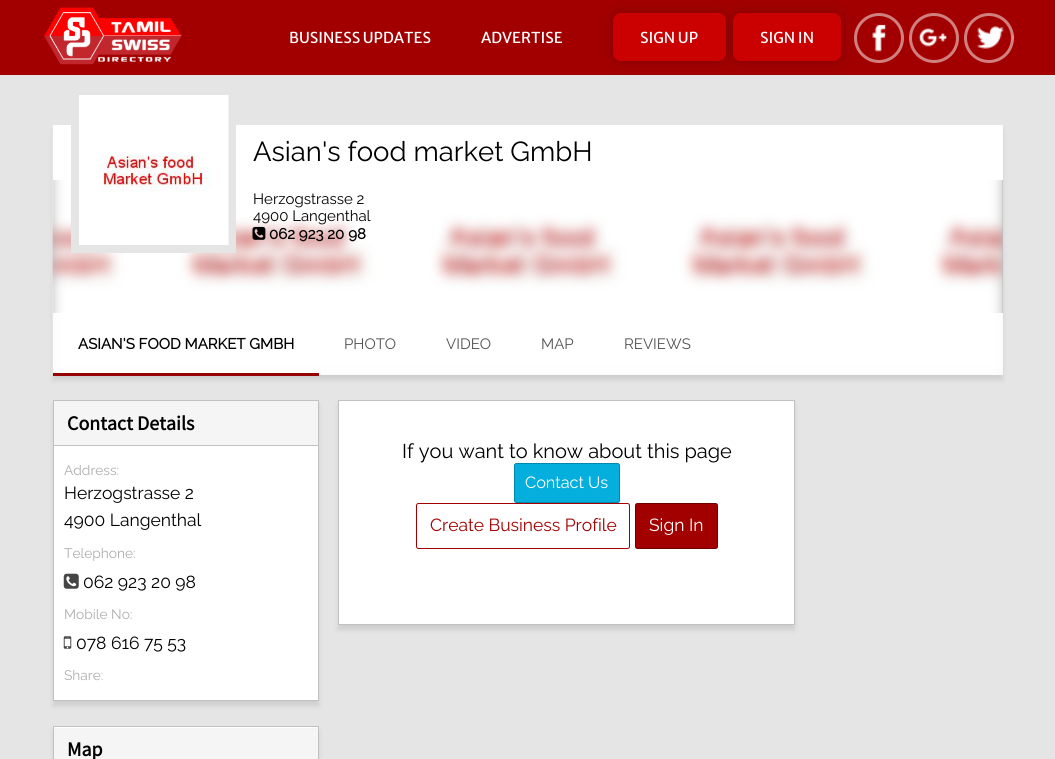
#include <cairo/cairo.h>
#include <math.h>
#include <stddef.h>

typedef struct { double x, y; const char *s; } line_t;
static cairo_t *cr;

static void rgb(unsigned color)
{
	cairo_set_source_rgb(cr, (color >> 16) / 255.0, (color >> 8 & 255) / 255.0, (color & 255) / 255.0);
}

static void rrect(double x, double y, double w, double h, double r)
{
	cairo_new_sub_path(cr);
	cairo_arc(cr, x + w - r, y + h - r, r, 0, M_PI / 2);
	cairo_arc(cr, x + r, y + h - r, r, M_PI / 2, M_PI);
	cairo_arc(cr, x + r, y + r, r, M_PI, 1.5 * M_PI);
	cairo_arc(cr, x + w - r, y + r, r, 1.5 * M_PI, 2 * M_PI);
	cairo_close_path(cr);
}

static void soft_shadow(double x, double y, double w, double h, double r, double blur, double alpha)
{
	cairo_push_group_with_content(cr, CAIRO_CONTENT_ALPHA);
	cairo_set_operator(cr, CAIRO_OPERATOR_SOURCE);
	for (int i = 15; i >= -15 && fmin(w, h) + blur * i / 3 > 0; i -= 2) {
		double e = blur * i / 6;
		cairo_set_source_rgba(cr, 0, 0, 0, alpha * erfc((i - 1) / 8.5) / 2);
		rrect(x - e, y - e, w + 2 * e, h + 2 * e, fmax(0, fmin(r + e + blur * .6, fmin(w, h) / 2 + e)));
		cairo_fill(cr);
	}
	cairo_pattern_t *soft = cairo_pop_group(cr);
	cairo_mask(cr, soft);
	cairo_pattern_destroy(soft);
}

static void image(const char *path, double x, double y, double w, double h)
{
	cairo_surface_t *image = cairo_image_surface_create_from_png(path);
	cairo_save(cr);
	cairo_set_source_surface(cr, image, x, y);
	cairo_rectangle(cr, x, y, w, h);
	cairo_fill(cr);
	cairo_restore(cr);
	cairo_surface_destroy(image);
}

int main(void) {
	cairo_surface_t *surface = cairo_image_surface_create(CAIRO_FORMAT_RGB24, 1055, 759);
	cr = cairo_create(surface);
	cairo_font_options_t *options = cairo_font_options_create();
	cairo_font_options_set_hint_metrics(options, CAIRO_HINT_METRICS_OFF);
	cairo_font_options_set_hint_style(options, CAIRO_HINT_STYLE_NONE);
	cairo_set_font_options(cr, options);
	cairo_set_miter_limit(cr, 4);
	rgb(0xe5e5e5);
	cairo_paint(cr);
	rgb(0xa20000);
	cairo_rectangle(cr, 0, 0, 1055, 75);
	cairo_fill(cr);
	image("img/1.png", 44, 7, 138, 58);
	rgb(0x000000);
	soft_shadow(613, 13, 113, 48, 8, 6, 0.2);
	rgb(0xcb0101);
	rrect(614.5, 14.5, 110, 45, 6.5);
	cairo_fill_preserve(cr);
	cairo_set_line_width(cr, 3);
	cairo_stroke(cr);
	rgb(0x000000);
	soft_shadow(733, 13, 108, 48, 8, 6, 0.2);
	rgb(0xcb0101);
	rrect(734.5, 14.5, 105, 45, 6.5);
	cairo_fill_preserve(cr);
	cairo_stroke(cr);
	image("img/2.png", 872, 24, 32, 28);
	cairo_arc(cr, 879, 38, 23.5, 0, 2 * M_PI);
	cairo_set_source_rgba(cr, 1, 1, 1, 0.5);
	cairo_stroke(cr);
	image("img/3.png", 909, 28, 38, 19);
	cairo_arc(cr, 934, 38, 23.5, 0, 2 * M_PI);
	cairo_stroke(cr);
	image("img/4.png", 977, 26, 37, 23);
	cairo_arc(cr, 989, 38, 23.5, 0, 2 * M_PI);
	cairo_stroke(cr);
	rgb(0x000000);
	soft_shadow(53, 130, 950, 250, 0, 2.5, 0.1);
	rgb(0xb9b9b9);
	cairo_rectangle(cr, 53, 180, 950, 195);
	cairo_fill(cr);
	image("img/6.png", 52, 125, 951, 250);
	rgb(0xffffff);
	cairo_rectangle(cr, 53, 125, 950, 55);
	cairo_fill(cr);
	cairo_rectangle(cr, 75, 92, 157, 157);
	rgb(0xe5e5e5);
	cairo_set_line_width(cr, 8);
	cairo_stroke(cr);
	image("img/5.png", 79, 95, 150, 150);
	image("img/7.png", 252, 226, 14, 14);
	cairo_set_source_rgba(cr, 1, 1, 1, 0.9);
	cairo_rectangle(cr, 53, 313, 950, 62);
	cairo_fill(cr);
	rgb(0x950202);
	cairo_rectangle(cr, 53, 373, 266, 3);
	cairo_fill(cr);
	rgb(0x000000);
	soft_shadow(53, 405, 266, 301, 0, 2.5, 0.1);
	rgb(0xffffff);
	cairo_rectangle(cr, 54, 446, 264, 254);
	cairo_fill(cr);
	cairo_rectangle(cr, 53.5, 400.5, 265, 300);
	rgb(0xc2c0c0);
	cairo_set_line_width(cr, 1);
	cairo_stroke(cr);
	rgb(0xf5f5f5);
	cairo_rectangle(cr, 54, 401, 264, 44);
	cairo_fill(cr);
	rgb(0xc2c0c0);
	cairo_rectangle(cr, 54, 445, 264, 1);
	cairo_fill(cr);
	image("img/8.png", 63, 573, 16, 16);
	image("img/9.png", 63, 636, 9, 13);
	rgb(0x000000);
	soft_shadow(53, 731, 266, 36, 0, 2.5, 0.1);
	rgb(0xffffff);
	cairo_rectangle(cr, 54, 727, 264, 1);
	cairo_fill(cr);
	cairo_rectangle(cr, 53.5, 726.5, 265, 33);
	rgb(0xc2c0c0);
	cairo_stroke(cr);
	rgb(0xf5f5f5);
	cairo_rectangle(cr, 54, 728, 264, 31);
	cairo_fill(cr);
	rgb(0x000000);
	soft_shadow(338, 405, 457, 225, 0, 2.5, 0.1);
	rgb(0xffffff);
	cairo_rectangle(cr, 338.5, 400.5, 456, 224);
	cairo_fill_preserve(cr);
	rgb(0xc2c0c0);
	cairo_stroke(cr);
	rgb(0x04afdd);
	rrect(514.5, 463.5, 105, 39, 2);
	cairo_fill_preserve(cr);
	rgb(0x0387ab);
	cairo_stroke(cr);
	rrect(416.5, 503.5, 213, 45, 2);
	rgb(0xa20000);
	cairo_stroke(cr);
	rrect(635.5, 503.5, 82, 45, 2);
	cairo_fill_preserve(cr);
	rgb(0x6f0000);
	cairo_stroke(cr);
	cairo_select_font_face(cr, "Merriweather Sans", CAIRO_FONT_SLANT_NORMAL, CAIRO_FONT_WEIGHT_NORMAL);
	cairo_set_font_size(cr, 15);
	rgb(0xffffff);
	{
		static const line_t items[] = {
			{289, 43, "BUSINESS UPDATES"},
			{481, 43, "ADVERTISE"},
			{640, 43, "SIGN UP"},
			{760, 43, "SIGN IN"},
		};
		for (size_t i = 0; i < sizeof items / sizeof *items; i++) {
			cairo_move_to(cr, items[i].x, items[i].y);
			cairo_show_text(cr, items[i].s);
		}
	}
	cairo_select_font_face(cr, "Raleway Thin", CAIRO_FONT_SLANT_NORMAL, CAIRO_FONT_WEIGHT_NORMAL);
	cairo_set_font_size(cr, 27.5);
	rgb(0x000000);
	cairo_move_to(cr, 253, 161);
	cairo_show_text(cr, "Asian's food market GmbH");
	cairo_set_font_size(cr, 15);
	cairo_move_to(cr, 253, 204);
	cairo_show_text(cr, "Herzogstrasse 2");
	cairo_move_to(cr, 253, 221);
	cairo_show_text(cr, "4900 Langenthal");
	cairo_select_font_face(cr, "Raleway", CAIRO_FONT_SLANT_NORMAL, CAIRO_FONT_WEIGHT_BOLD);
	cairo_move_to(cr, 269, 239);
	cairo_show_text(cr, "062 923 20 98");
	cairo_move_to(cr, 78, 349);
	cairo_show_text(cr, "ASIAN'S FOOD MARKET GMBH");
	cairo_select_font_face(cr, "Raleway Thin", CAIRO_FONT_SLANT_NORMAL, CAIRO_FONT_WEIGHT_NORMAL);
	rgb(0x535353);
	{
		static const line_t items[] = {
			{344, 349, "PHOTO"},
			{446, 349, "VIDEO"},
			{541, 349, "MAP"},
			{624, 349, "REVIEWS"},
		};
		for (size_t i = 0; i < sizeof items / sizeof *items; i++) {
			cairo_move_to(cr, items[i].x, items[i].y);
			cairo_show_text(cr, items[i].s);
		}
	}
	cairo_select_font_face(cr, "Source Sans Pro", CAIRO_FONT_SLANT_NORMAL, CAIRO_FONT_WEIGHT_BOLD);
	cairo_set_font_size(cr, 20);
	rgb(0x000000);
	cairo_move_to(cr, 67, 430);
	cairo_show_text(cr, "Contact Details");
	cairo_select_font_face(cr, "Raleway Thin", CAIRO_FONT_SLANT_NORMAL, CAIRO_FONT_WEIGHT_NORMAL);
	cairo_set_font_size(cr, 13.75);
	rgb(0xaeaeae);
	cairo_move_to(cr, 64, 475);
	cairo_show_text(cr, "Address:");
	cairo_set_font_size(cr, 17.5);
	rgb(0x000000);
	cairo_move_to(cr, 64, 499);
	cairo_show_text(cr, "Herzogstrasse 2");
	cairo_move_to(cr, 64, 526);
	cairo_show_text(cr, "4900 Langenthal");
	cairo_set_font_size(cr, 13.75);
	rgb(0xaeaeae);
	cairo_move_to(cr, 64, 558);
	cairo_show_text(cr, "Telephone:");
	cairo_set_font_size(cr, 17.5);
	rgb(0x000000);
	cairo_move_to(cr, 83, 588);
	cairo_show_text(cr, "062 923 20 98");
	cairo_set_font_size(cr, 13.75);
	rgb(0xaeaeae);
	cairo_move_to(cr, 64, 619);
	cairo_show_text(cr, "Mobile No:");
	cairo_set_font_size(cr, 17.5);
	rgb(0x000000);
	cairo_move_to(cr, 76, 649);
	cairo_show_text(cr, "078 616 75 53");
	cairo_set_font_size(cr, 13.75);
	rgb(0xaeaeae);
	cairo_move_to(cr, 64, 680);
	cairo_show_text(cr, "Share:");
	cairo_select_font_face(cr, "Source Sans Pro", CAIRO_FONT_SLANT_NORMAL, CAIRO_FONT_WEIGHT_BOLD);
	cairo_set_font_size(cr, 20);
	rgb(0x000000);
	cairo_move_to(cr, 67, 756);
	cairo_show_text(cr, "Map");
	cairo_select_font_face(cr, "Raleway Thin", CAIRO_FONT_SLANT_NORMAL, CAIRO_FONT_WEIGHT_NORMAL);
	cairo_move_to(cr, 402, 458);
	cairo_show_text(cr, "If you want to know about this page");
	cairo_set_font_size(cr, 16.25);
	rgb(0xffffff);
	cairo_move_to(cr, 525, 488);
	cairo_show_text(cr, "Contact Us");
	cairo_set_font_size(cr, 17.5);
	rgb(0xa20000);
	cairo_move_to(cr, 430, 531);
	cairo_show_text(cr, "Create Business Profile");
	rgb(0xffffff);
	cairo_move_to(cr, 649, 531);
	cairo_show_text(cr, "Sign In");
	cairo_surface_write_to_png(surface, "page.png");
	cairo_font_options_destroy(options);
	cairo_destroy(cr);
	cairo_surface_destroy(surface);
	return 0;
}
